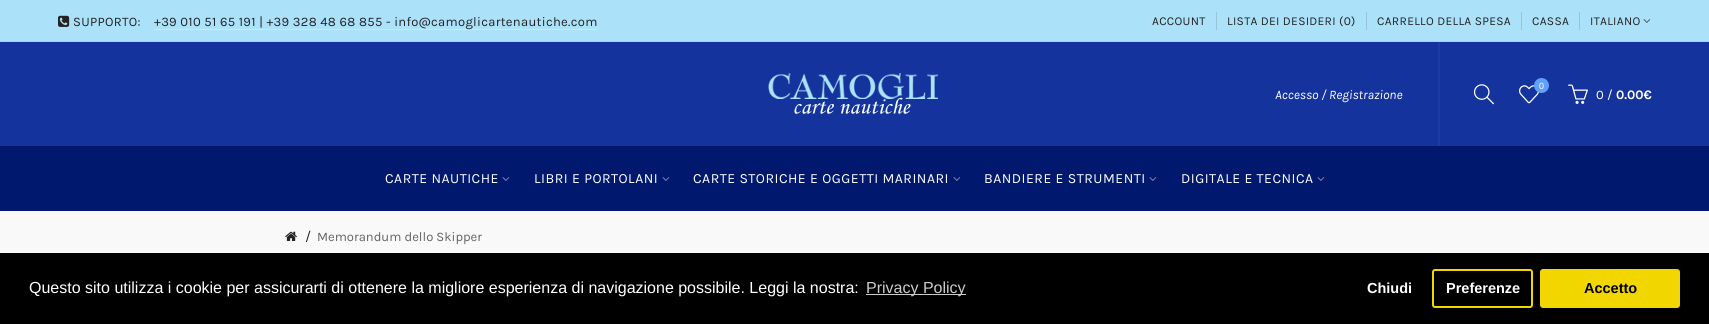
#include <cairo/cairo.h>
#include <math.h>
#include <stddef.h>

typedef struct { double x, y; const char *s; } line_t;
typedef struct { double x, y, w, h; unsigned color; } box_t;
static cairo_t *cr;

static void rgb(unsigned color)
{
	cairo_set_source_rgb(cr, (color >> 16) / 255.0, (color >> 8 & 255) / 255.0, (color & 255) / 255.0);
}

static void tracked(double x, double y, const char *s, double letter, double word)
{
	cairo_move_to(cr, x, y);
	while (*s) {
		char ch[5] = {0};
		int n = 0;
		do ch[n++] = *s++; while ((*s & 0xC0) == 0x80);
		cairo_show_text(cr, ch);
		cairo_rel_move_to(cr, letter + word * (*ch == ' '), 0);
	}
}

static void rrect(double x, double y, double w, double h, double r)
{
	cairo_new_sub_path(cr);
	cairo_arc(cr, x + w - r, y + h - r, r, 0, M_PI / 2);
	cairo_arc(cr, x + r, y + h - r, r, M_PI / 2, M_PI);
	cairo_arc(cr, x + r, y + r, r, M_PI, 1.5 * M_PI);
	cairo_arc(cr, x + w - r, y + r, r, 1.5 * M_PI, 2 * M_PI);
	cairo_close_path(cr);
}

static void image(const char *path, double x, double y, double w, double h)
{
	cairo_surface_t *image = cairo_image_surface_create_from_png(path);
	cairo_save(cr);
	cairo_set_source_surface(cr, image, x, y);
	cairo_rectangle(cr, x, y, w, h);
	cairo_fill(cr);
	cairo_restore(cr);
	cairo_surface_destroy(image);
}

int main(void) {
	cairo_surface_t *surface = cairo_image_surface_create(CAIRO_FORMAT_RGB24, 1709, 324);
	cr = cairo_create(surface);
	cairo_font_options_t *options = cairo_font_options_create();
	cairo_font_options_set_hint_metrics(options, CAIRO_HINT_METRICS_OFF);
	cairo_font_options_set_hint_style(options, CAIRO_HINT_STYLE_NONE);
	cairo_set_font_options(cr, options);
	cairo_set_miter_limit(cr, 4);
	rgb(0xf9f9f9);
	cairo_paint(cr);
	rgb(0xabe1f9);
	cairo_rectangle(cr, 0, 0, 1709, 41);
	cairo_fill(cr);
	image("img/1.png", 58, 15, 12, 12);
	{
		static const box_t items[] = {
			{154, 29, 443, 1, 0xc4eafb},
			{1216, 12, 1, 18, 0x97c4d9},
			{1366, 12, 1, 18, 0x97c4d9},
			{1521, 12, 1, 18, 0x97c4d9},
			{1579, 12, 1, 18, 0x97c4d9},
		};
		for (size_t i = 0; i < sizeof items / sizeof *items; i++) {
			rgb(items[i].color);
			cairo_rectangle(cr, items[i].x, items[i].y, items[i].w, items[i].h);
			cairo_fill(cr);
		}
	}
	image("img/2.png", 1643, 19, 8, 4);
	rgb(0xa2d6ed);
	cairo_rectangle(cr, 0, 41, 1709, 1);
	cairo_fill(cr);
	rgb(0x15339d);
	cairo_rectangle(cr, 0, 42, 1709, 104);
	cairo_fill(cr);
	image("img/3.png", 768, 73, 170, 41);
	rgb(0x1e3ba1);
	cairo_rectangle(cr, 1438, 42, 2, 104);
	cairo_fill(cr);
	image("img/4.png", 1474, 84, 20, 21);
	image("img/5.png", 1519, 85, 20, 19);
	rgb(0x60a0f9);
	cairo_arc(cr, 1541.5, 85.5, 7.5, 0, 2 * M_PI);
	cairo_fill(cr);
	image("img/6.png", 1568, 84, 20, 20);
	rgb(0x00186e);
	cairo_rectangle(cr, 0, 147, 1709, 64);
	cairo_fill(cr);
	rgb(0x001666);
	cairo_rectangle(cr, 0, 146, 1709, 1);
	cairo_fill(cr);
	image("img/7.png", 502, 177, 8, 4);
	image("img/7.png", 662, 177, 8, 4);
	image("img/7.png", 953, 177, 8, 4);
	image("img/7.png", 1149, 177, 8, 4);
	image("img/7.png", 1317, 177, 8, 4);
	image("img/8.png", 285, 231, 12, 10);
	rgb(0x000000);
	cairo_rectangle(cr, 0, 253, 1709, 71);
	cairo_fill(cr);
	rgb(0xcccccc);
	cairo_rectangle(cr, 866, 294, 100, 1);
	cairo_fill(cr);
	rrect(1433, 270, 99, 37, 2);
	rgb(0xf1d600);
	cairo_stroke(cr);
	rrect(1540, 269, 140, 39, 3);
	cairo_fill(cr);
	cairo_select_font_face(cr, "Karla", CAIRO_FONT_SLANT_NORMAL, CAIRO_FONT_WEIGHT_NORMAL);
	cairo_set_font_size(cr, 13);
	rgb(0x222222);
	tracked(73, 26, "SUPPORTO:", 0.3, 0);
	tracked(154, 26, "+39 010 51 65 191 | +39 328 48 68 855 - info@camoglicartenautiche.com", 0.3, 0);
	cairo_set_font_size(cr, 12);
	{
		static const line_t items[] = {
			{1152, 25, "ACCOUNT"},
			{1227, 25, "LISTA DEI DESIDERI (0)"},
			{1377, 25, "CARRELLO DELLA SPESA"},
			{1532, 25, "CASSA"},
			{1590, 25, "ITALIANO"},
		};
		for (size_t i = 0; i < sizeof items / sizeof *items; i++) {
			tracked(items[i].x, items[i].y, items[i].s, 0.3, 0);
		}
	}
	cairo_select_font_face(cr, "Karla", CAIRO_FONT_SLANT_ITALIC, CAIRO_FONT_WEIGHT_NORMAL);
	cairo_set_font_size(cr, 13);
	rgb(0xffffff);
	cairo_move_to(cr, 1275, 99);
	cairo_show_text(cr, "Accesso / Registrazione");
	cairo_select_font_face(cr, "Liberation Sans", CAIRO_FONT_SLANT_NORMAL, CAIRO_FONT_WEIGHT_NORMAL);
	cairo_set_font_size(cr, 9);
	cairo_move_to(cr, 1539, 89);
	cairo_show_text(cr, "0");
	cairo_select_font_face(cr, "Karla", CAIRO_FONT_SLANT_NORMAL, CAIRO_FONT_WEIGHT_NORMAL);
	cairo_set_font_size(cr, 13);
	cairo_move_to(cr, 1596, 99);
	cairo_show_text(cr, "0");
	cairo_move_to(cr, 1607, 99);
	cairo_show_text(cr, "/");
	cairo_select_font_face(cr, "Karla", CAIRO_FONT_SLANT_NORMAL, CAIRO_FONT_WEIGHT_BOLD);
	cairo_move_to(cr, 1616, 99);
	cairo_show_text(cr, "0.00€");
	cairo_select_font_face(cr, "Karla", CAIRO_FONT_SLANT_NORMAL, CAIRO_FONT_WEIGHT_NORMAL);
	cairo_set_font_size(cr, 14);
	{
		static const line_t items[] = {
			{385, 183, "CARTE NAUTICHE"},
			{534, 183, "LIBRI E PORTOLANI"},
			{693, 183, "CARTE STORICHE E OGGETTI MARINARI"},
			{984, 183, "BANDIERE E STRUMENTI"},
			{1181, 183, "DIGITALE E TECNICA"},
		};
		for (size_t i = 0; i < sizeof items / sizeof *items; i++) {
			tracked(items[i].x, items[i].y, items[i].s, 0.5, 0);
		}
	}
	rgb(0x222222);
	cairo_move_to(cr, 305, 241);
	cairo_show_text(cr, "/");
	cairo_set_font_size(cr, 13);
	rgb(0x636363);
	cairo_move_to(cr, 317, 241);
	cairo_show_text(cr, "Memorandum dello Skipper");
	cairo_select_font_face(cr, "Liberation Sans", CAIRO_FONT_SLANT_NORMAL, CAIRO_FONT_WEIGHT_NORMAL);
	cairo_set_font_size(cr, 16);
	rgb(0xffffff);
	cairo_move_to(cr, 29, 293);
	cairo_show_text(cr, "Questo sito utilizza i cookie per assicurarti di ottenere la migliore esperienza di navigazione possibile. Leggi la nostra:");
	rgb(0xcccccc);
	cairo_move_to(cr, 866, 293);
	cairo_show_text(cr, "Privacy Policy");
	cairo_select_font_face(cr, "Liberation Sans", CAIRO_FONT_SLANT_NORMAL, CAIRO_FONT_WEIGHT_BOLD);
	cairo_set_font_size(cr, 14.5);
	rgb(0xffffff);
	cairo_move_to(cr, 1367, 293);
	cairo_show_text(cr, "Chiudi");
	cairo_move_to(cr, 1446, 293);
	cairo_show_text(cr, "Preferenze");
	rgb(0x000000);
	cairo_move_to(cr, 1584, 293);
	cairo_show_text(cr, "Accetto");
	cairo_surface_write_to_png(surface, "page.png");
	cairo_font_options_destroy(options);
	cairo_destroy(cr);
	cairo_surface_destroy(surface);
	return 0;
}
